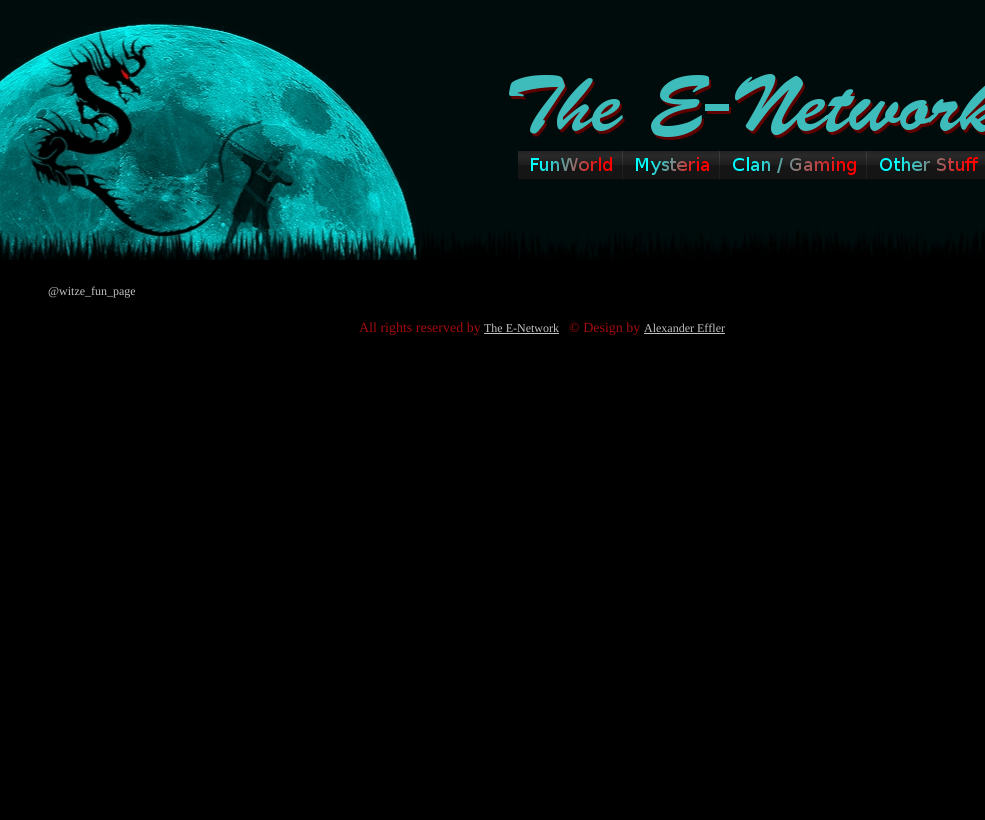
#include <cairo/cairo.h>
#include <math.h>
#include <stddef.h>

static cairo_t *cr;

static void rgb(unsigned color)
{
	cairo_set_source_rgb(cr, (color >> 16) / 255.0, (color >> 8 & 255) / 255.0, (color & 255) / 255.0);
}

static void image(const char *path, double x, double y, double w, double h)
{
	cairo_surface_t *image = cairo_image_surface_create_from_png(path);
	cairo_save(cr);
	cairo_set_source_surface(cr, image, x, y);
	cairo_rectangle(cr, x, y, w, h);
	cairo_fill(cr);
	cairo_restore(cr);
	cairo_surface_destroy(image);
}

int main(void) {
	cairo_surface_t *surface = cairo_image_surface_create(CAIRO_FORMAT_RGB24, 985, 820);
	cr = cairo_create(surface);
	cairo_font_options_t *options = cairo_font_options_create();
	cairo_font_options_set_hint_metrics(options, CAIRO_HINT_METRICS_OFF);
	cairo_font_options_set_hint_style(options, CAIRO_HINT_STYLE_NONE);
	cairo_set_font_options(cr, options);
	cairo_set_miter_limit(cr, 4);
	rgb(0x000000);
	cairo_paint(cr);
	image("img/1.png", 0, 0, 985, 260);
	image("img/2.png", 509, 74, 476, 66);
	image("img/3.png", 518, 151, 105, 29);
	image("img/4.png", 623, 151, 97, 29);
	image("img/5.png", 720, 151, 147, 29);
	image("img/6.png", 867, 151, 118, 29);
	rgb(0xc1c1c1);
	cairo_rectangle(cr, 484, 333, 75, 1);
	cairo_fill(cr);
	cairo_rectangle(cr, 644, 333, 81, 1);
	cairo_fill(cr);
	cairo_select_font_face(cr, "Liberation Serif", CAIRO_FONT_SLANT_NORMAL, CAIRO_FONT_WEIGHT_NORMAL);
	cairo_set_font_size(cr, 12);
	cairo_move_to(cr, 48, 295);
	cairo_show_text(cr, "@witze_fun_page");
	cairo_set_font_size(cr, 14);
	rgb(0xa30b0b);
	cairo_move_to(cr, 359, 332);
	cairo_show_text(cr, "All rights reserved by");
	cairo_set_font_size(cr, 12);
	rgb(0xc1c1c1);
	cairo_move_to(cr, 484, 332);
	cairo_show_text(cr, "The E-Network");
	cairo_set_font_size(cr, 14);
	rgb(0xa30b0b);
	cairo_move_to(cr, 569, 332);
	cairo_show_text(cr, "© Design by");
	cairo_set_font_size(cr, 12);
	rgb(0xc1c1c1);
	cairo_move_to(cr, 644, 332);
	cairo_show_text(cr, "Alexander Effler");
	cairo_surface_write_to_png(surface, "page.png");
	cairo_font_options_destroy(options);
	cairo_destroy(cr);
	cairo_surface_destroy(surface);
	return 0;
}
